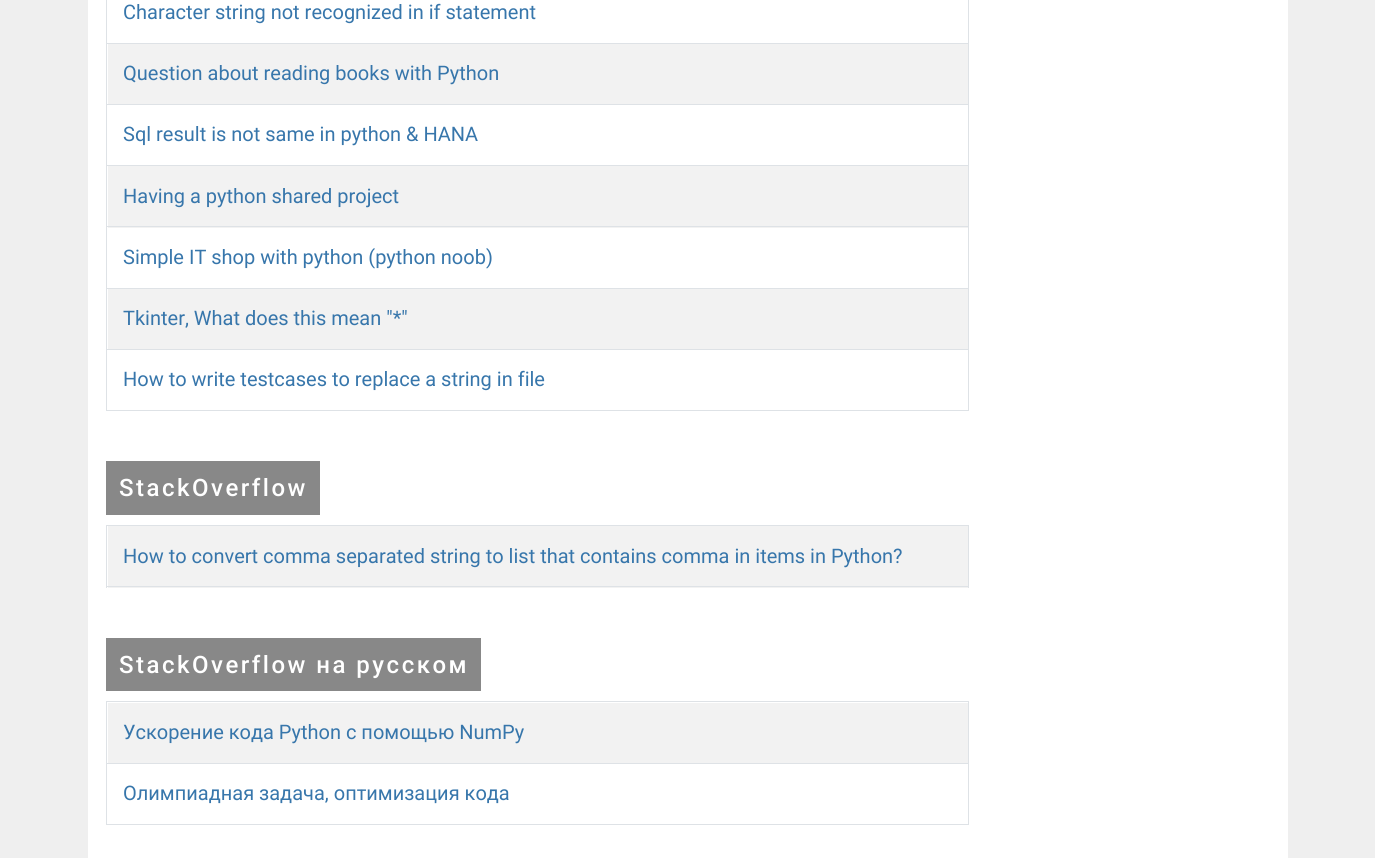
#include <cairo/cairo.h>
#include <math.h>
#include <stddef.h>

typedef struct { double x, y; const char *s; } line_t;
typedef struct { double x, y, w, h; unsigned color; } box_t;
static cairo_t *cr;

static void rgb(unsigned color)
{
	cairo_set_source_rgb(cr, (color >> 16) / 255.0, (color >> 8 & 255) / 255.0, (color & 255) / 255.0);
}

static void tracked(double x, double y, const char *s, double letter, double word)
{
	cairo_move_to(cr, x, y);
	while (*s) {
		char ch[5] = {0};
		int n = 0;
		do ch[n++] = *s++; while ((*s & 0xC0) == 0x80);
		cairo_show_text(cr, ch);
		cairo_rel_move_to(cr, letter + word * (*ch == ' '), 0);
	}
}

int main(void) {
	cairo_surface_t *surface = cairo_image_surface_create(CAIRO_FORMAT_RGB24, 1375, 858);
	cr = cairo_create(surface);
	cairo_font_options_t *options = cairo_font_options_create();
	cairo_font_options_set_hint_metrics(options, CAIRO_HINT_METRICS_OFF);
	cairo_font_options_set_hint_style(options, CAIRO_HINT_STYLE_NONE);
	cairo_set_font_options(cr, options);
	cairo_set_miter_limit(cr, 4);
	rgb(0xefefef);
	cairo_paint(cr);
	{
		static const box_t items[] = {
			{88, 0, 1200, 858, 0xffffff},
			{108, 44, 860, 60, 0xf2f2f2},
			{106, 43, 863, 1, 0xdee2e6},
			{106, 104, 863, 1, 0xdee2e6},
			{106, 165, 863, 1, 0xdee2e6},
			{108, 166, 860, 62, 0xf2f2f2},
			{106, 226, 863, 1, 0xdee2e6},
			{106, 288, 863, 1, 0xdee2e6},
			{106, 349, 863, 1, 0xdee2e6},
			{968, 349, 1, 62, 0xdee2e6},
			{968, 288, 1, 62, 0xdee2e6},
			{968, 226, 1, 63, 0xdee2e6},
			{968, 165, 1, 63, 0xdee2e6},
			{968, 104, 1, 62, 0xdee2e6},
			{968, 0, 1, 105, 0xdee2e6},
			{106, 410, 863, 1, 0xdee2e6},
			{106, 349, 1, 62, 0xdee2e6},
			{106, 288, 1, 62, 0xdee2e6},
			{106, 226, 1, 63, 0xdee2e6},
			{106, 165, 1, 63, 0xdee2e6},
			{106, 104, 1, 62, 0xdee2e6},
			{106, 0, 1, 105, 0xdee2e6},
			{108, 289, 860, 60, 0xf2f2f2},
			{106, 461, 214, 54, 0x888888},
			{108, 526, 860, 62, 0xf2f2f2},
			{106, 525, 863, 1, 0xdee2e6},
			{968, 525, 1, 63, 0xdee2e6},
			{106, 586, 863, 1, 0xdee2e6},
			{106, 525, 1, 63, 0xdee2e6},
			{106, 638, 375, 53, 0x888888},
			{108, 703, 860, 60, 0xf2f2f2},
			{106, 701, 863, 1, 0xdee2e6},
			{106, 763, 863, 1, 0xdee2e6},
			{968, 763, 1, 62, 0xdee2e6},
			{968, 701, 1, 63, 0xdee2e6},
			{106, 824, 863, 1, 0xdee2e6},
			{106, 763, 1, 62, 0xdee2e6},
			{106, 701, 1, 63, 0xdee2e6},
		};
		for (size_t i = 0; i < sizeof items / sizeof *items; i++) {
			rgb(items[i].color);
			cairo_rectangle(cr, items[i].x, items[i].y, items[i].w, items[i].h);
			cairo_fill(cr);
		}
	}
	cairo_select_font_face(cr, "Roboto", CAIRO_FONT_SLANT_NORMAL, CAIRO_FONT_WEIGHT_NORMAL);
	cairo_set_font_size(cr, 20);
	rgb(0x3776ab);
	{
		static const line_t items[] = {
			{123, 19, "Character string not recognized in if statement"},
			{123, 80, "Question about reading books with Python"},
			{123, 141, "Sql result is not same in python & HANA"},
			{123, 203, "Having a python shared project"},
			{123, 264, "Simple IT shop with python (python noob)"},
			{123, 325, "Tkinter, What does this mean \"*\""},
			{123, 386, "How to write testcases to replace a string in file"},
		};
		for (size_t i = 0; i < sizeof items / sizeof *items; i++) {
			cairo_move_to(cr, items[i].x, items[i].y);
			cairo_show_text(cr, items[i].s);
		}
	}
	cairo_select_font_face(cr, "Roboto Medium", CAIRO_FONT_SLANT_NORMAL, CAIRO_FONT_WEIGHT_NORMAL);
	cairo_set_font_size(cr, 24);
	rgb(0xffffff);
	tracked(119, 496, "StackOverflow", 2.5, 0);
	cairo_select_font_face(cr, "Roboto", CAIRO_FONT_SLANT_NORMAL, CAIRO_FONT_WEIGHT_NORMAL);
	cairo_set_font_size(cr, 20);
	rgb(0x3776ab);
	cairo_move_to(cr, 123, 563);
	cairo_show_text(cr, "How to convert comma separated string to list that contains comma in items in Python?");
	cairo_select_font_face(cr, "Roboto Medium", CAIRO_FONT_SLANT_NORMAL, CAIRO_FONT_WEIGHT_NORMAL);
	cairo_set_font_size(cr, 24);
	rgb(0xffffff);
	tracked(119, 673, "StackOverflow на русском", 2.5, 0);
	cairo_select_font_face(cr, "Roboto", CAIRO_FONT_SLANT_NORMAL, CAIRO_FONT_WEIGHT_NORMAL);
	cairo_set_font_size(cr, 20);
	rgb(0x3776ab);
	cairo_move_to(cr, 123, 739);
	cairo_show_text(cr, "Ускорение кода Python с помощью NumPy");
	cairo_move_to(cr, 123, 800);
	cairo_show_text(cr, "Олимпиадная задача, оптимизация кода");
	cairo_surface_write_to_png(surface, "page.png");
	cairo_font_options_destroy(options);
	cairo_destroy(cr);
	cairo_surface_destroy(surface);
	return 0;
}
